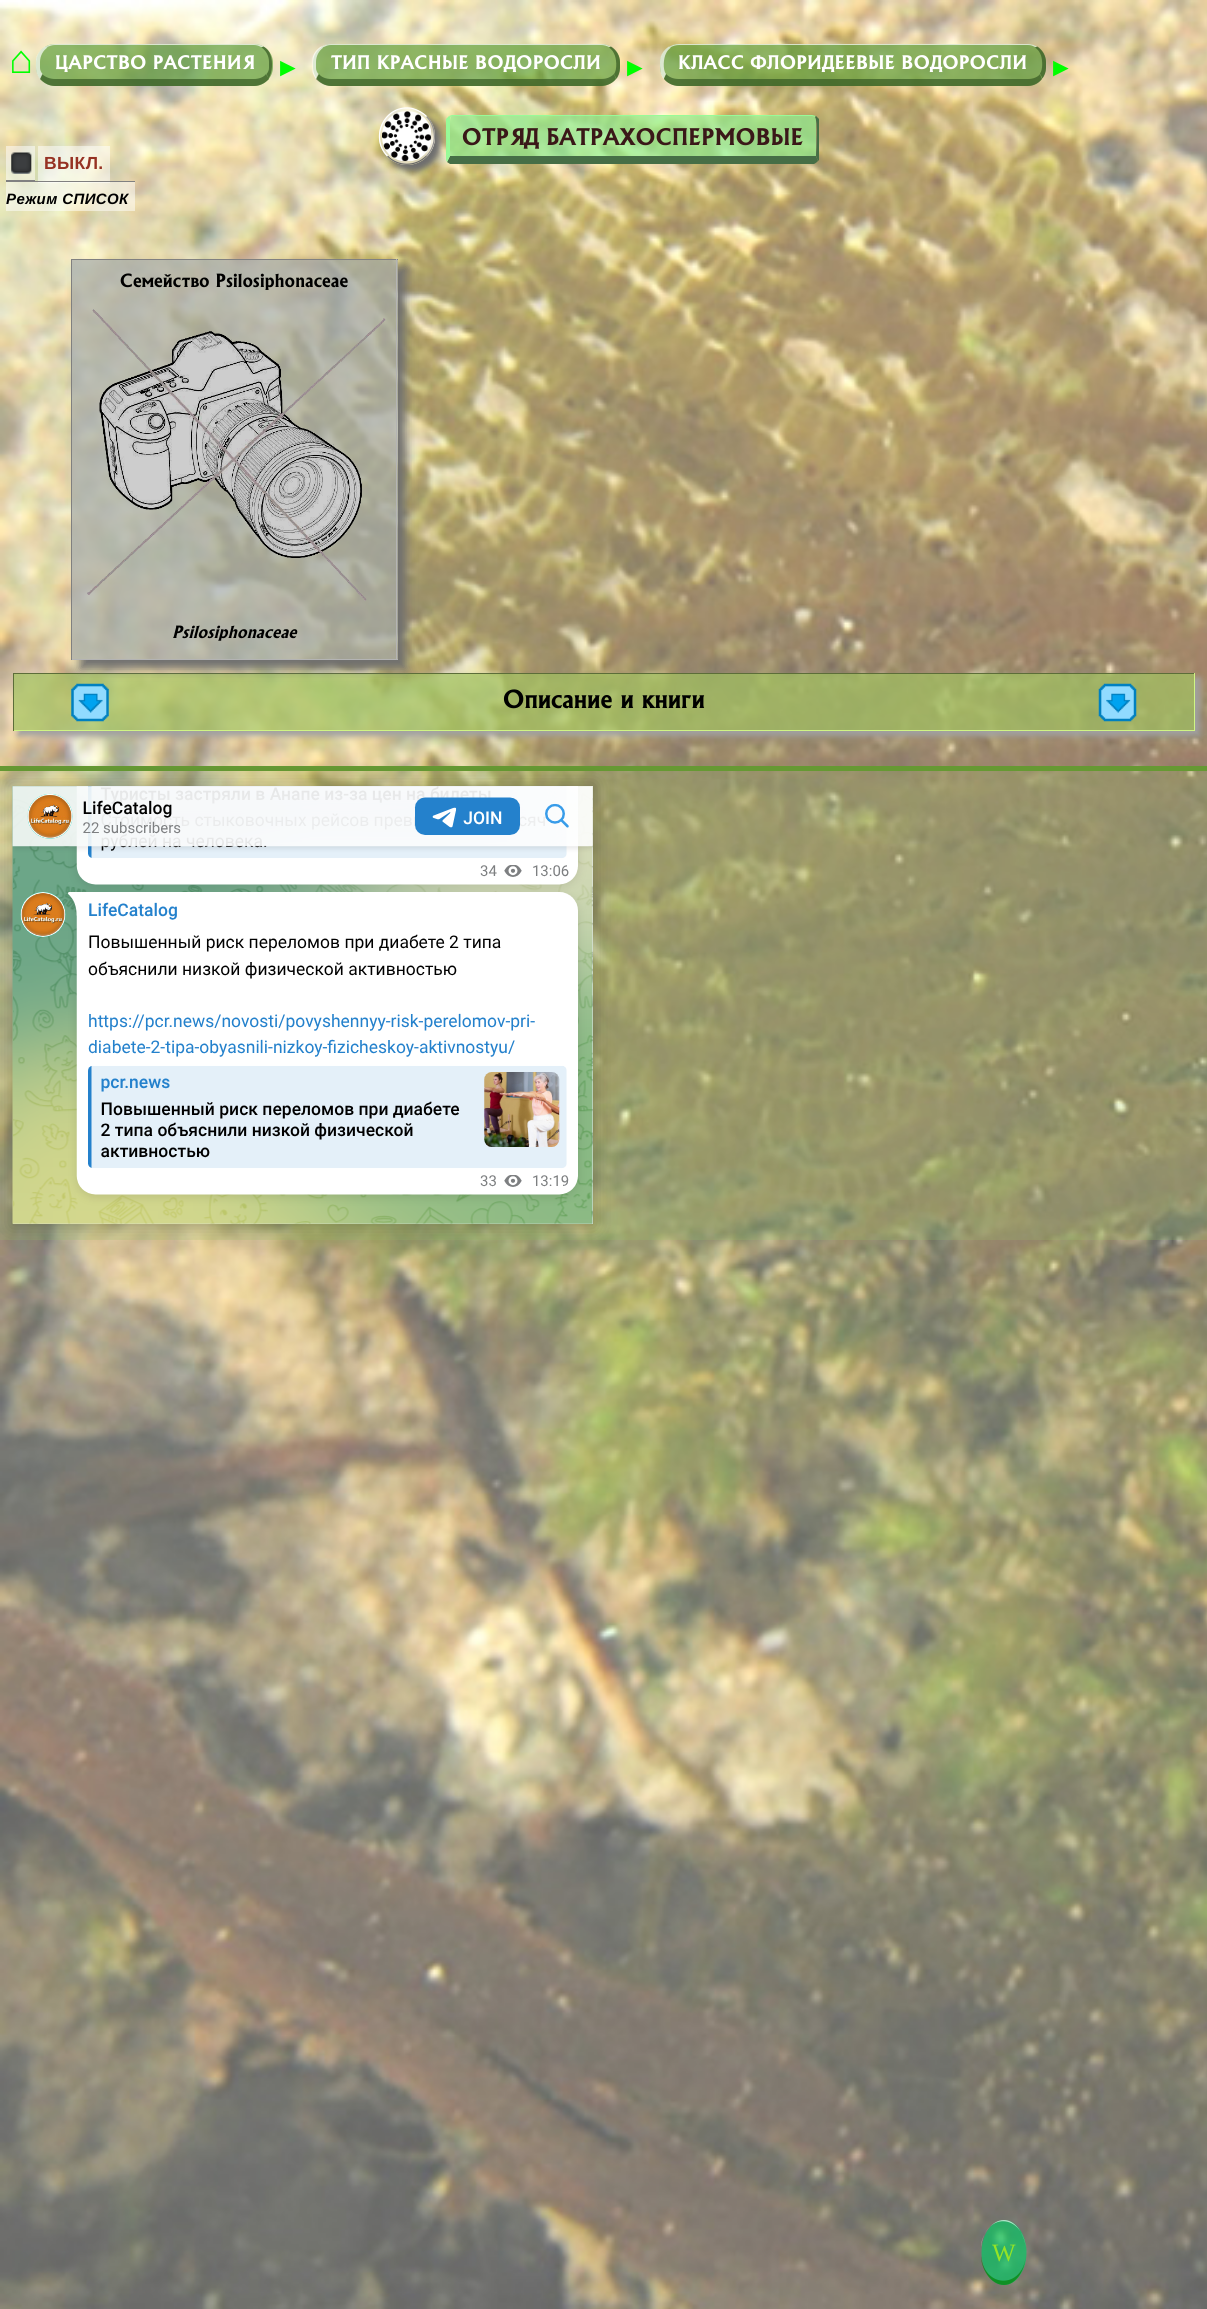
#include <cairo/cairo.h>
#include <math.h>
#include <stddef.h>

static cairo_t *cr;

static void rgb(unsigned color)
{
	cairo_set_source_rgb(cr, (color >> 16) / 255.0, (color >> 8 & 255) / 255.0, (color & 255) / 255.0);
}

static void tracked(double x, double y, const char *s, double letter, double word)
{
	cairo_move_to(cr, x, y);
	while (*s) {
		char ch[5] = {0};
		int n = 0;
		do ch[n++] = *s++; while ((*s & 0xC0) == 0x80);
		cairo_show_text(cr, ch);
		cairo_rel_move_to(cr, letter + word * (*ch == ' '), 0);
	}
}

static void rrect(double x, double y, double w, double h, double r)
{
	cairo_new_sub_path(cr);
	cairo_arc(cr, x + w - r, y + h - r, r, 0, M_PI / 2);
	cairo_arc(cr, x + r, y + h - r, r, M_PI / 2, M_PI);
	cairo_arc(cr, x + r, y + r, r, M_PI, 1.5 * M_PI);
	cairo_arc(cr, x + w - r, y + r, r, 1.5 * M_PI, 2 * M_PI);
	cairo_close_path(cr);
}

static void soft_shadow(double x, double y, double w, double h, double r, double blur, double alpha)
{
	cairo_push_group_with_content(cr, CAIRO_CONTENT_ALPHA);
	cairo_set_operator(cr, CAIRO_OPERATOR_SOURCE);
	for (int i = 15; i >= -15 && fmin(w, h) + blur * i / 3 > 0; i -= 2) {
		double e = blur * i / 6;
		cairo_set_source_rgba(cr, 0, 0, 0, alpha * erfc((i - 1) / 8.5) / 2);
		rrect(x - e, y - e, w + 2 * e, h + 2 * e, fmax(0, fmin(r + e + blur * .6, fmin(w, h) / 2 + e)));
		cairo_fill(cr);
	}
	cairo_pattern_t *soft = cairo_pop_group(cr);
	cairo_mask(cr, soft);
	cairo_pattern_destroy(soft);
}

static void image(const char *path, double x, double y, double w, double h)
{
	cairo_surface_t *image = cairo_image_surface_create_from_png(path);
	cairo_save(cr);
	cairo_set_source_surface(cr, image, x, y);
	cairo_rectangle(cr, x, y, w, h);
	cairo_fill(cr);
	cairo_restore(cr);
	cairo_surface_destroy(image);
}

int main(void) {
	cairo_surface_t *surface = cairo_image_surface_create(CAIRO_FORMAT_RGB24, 1207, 2309);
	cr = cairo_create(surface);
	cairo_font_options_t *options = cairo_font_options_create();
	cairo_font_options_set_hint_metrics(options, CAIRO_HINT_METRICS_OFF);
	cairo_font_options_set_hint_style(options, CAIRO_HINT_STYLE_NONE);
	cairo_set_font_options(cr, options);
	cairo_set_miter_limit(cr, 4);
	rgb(0xffffff);
	cairo_paint(cr);
	image("img/1.png", 0, 0, 1207, 2309);
	cairo_set_source_rgba(cr, 0.38, 0.627, 0.247, 0.7);
	rrect(36, 44, 237, 42, 19);
	cairo_fill(cr);
	cairo_set_source_rgba(cr, 1, 1, 1, 0.7);
	cairo_new_path(cr);
	cairo_move_to(cr, 55, 44);
	cairo_curve_to(cr, 51, 44, 48, 45, 45, 47);
	cairo_line_to(cr, 47, 47);
	cairo_curve_to(cr, 50, 46, 52, 45, 55, 45);
	cairo_line_to(cr, 254, 45);
	cairo_curve_to(cr, 257, 45, 259, 46, 261, 47);
	cairo_line_to(cr, 264, 47);
	cairo_curve_to(cr, 261, 45, 258, 44, 254, 44);
	cairo_close_path(cr);
	cairo_fill(cr);
	cairo_set_source_rgba(cr, 0.212, 0.349, 0.137, 0.7);
	cairo_new_path(cr);
	cairo_move_to(cr, 268.5, 78.5);
	cairo_curve_to(cr, 272.5, 73, 273, 61.5, 270.5, 55);
	cairo_curve_to(cr, 269.5, 51.5, 267, 48.5, 263.5, 46.5);
	cairo_line_to(cr, 261.5, 47.5);
	cairo_curve_to(cr, 266, 50.5, 269, 56, 269, 62);
	cairo_line_to(cr, 269, 68);
	cairo_curve_to(cr, 269, 70, 268, 72.5, 266.5, 74);
	cairo_close_path(cr);
	cairo_fill(cr);
	cairo_new_path(cr);
	cairo_move_to(cr, 269, 79);
	cairo_curve_to(cr, 265, 83, 260, 86, 254, 86);
	cairo_line_to(cr, 55, 86);
	cairo_curve_to(cr, 49, 86, 44, 83, 40, 79);
	cairo_line_to(cr, 42, 74);
	cairo_curve_to(cr, 45, 77, 50, 79, 55, 79);
	cairo_line_to(cr, 254, 79);
	cairo_curve_to(cr, 259, 79, 264, 77, 266, 74);
	cairo_close_path(cr);
	cairo_fill(cr);
	cairo_set_source_rgba(cr, 1, 1, 1, 0.7);
	cairo_new_path(cr);
	cairo_move_to(cr, 36, 59);
	cairo_curve_to(cr, 37, 54, 40.5, 49.5, 45, 46.5);
	cairo_line_to(cr, 47.5, 47.5);
	cairo_curve_to(cr, 43, 50.5, 40, 56, 40, 62);
	cairo_line_to(cr, 40, 68);
	cairo_curve_to(cr, 40, 70, 41, 72, 42.5, 74);
	cairo_line_to(cr, 40, 79);
	cairo_curve_to(cr, 35, 73, 36, 66.5, 36, 59);
	cairo_close_path(cr);
	cairo_fill(cr);
	cairo_set_source_rgba(cr, 0.38, 0.627, 0.247, 0.7);
	rrect(313, 44, 307, 42, 19);
	cairo_fill(cr);
	cairo_set_source_rgba(cr, 1, 1, 1, 0.7);
	cairo_new_path(cr);
	cairo_move_to(cr, 331, 44);
	cairo_curve_to(cr, 328, 44, 324, 45, 321, 47);
	cairo_line_to(cr, 324, 47);
	cairo_curve_to(cr, 326, 46, 328, 45, 331, 45);
	cairo_line_to(cr, 601, 45);
	cairo_curve_to(cr, 604, 45, 607, 46, 609, 47);
	cairo_line_to(cr, 611, 47);
	cairo_curve_to(cr, 608, 45, 605, 44, 601, 44);
	cairo_close_path(cr);
	cairo_fill(cr);
	cairo_set_source_rgba(cr, 0.212, 0.349, 0.137, 0.7);
	cairo_new_path(cr);
	cairo_move_to(cr, 611, 46.5);
	cairo_curve_to(cr, 616.5, 50, 620, 55.5, 620, 62);
	cairo_line_to(cr, 620, 68);
	cairo_curve_to(cr, 620, 72, 618.5, 76, 616.5, 79);
	cairo_line_to(cr, 614, 74);
	cairo_curve_to(cr, 617.5, 69.5, 616.5, 58, 614, 53.5);
	cairo_curve_to(cr, 613, 51, 611, 49, 609, 47.5);
	cairo_close_path(cr);
	cairo_fill(cr);
	cairo_new_path(cr);
	cairo_move_to(cr, 616, 79);
	cairo_curve_to(cr, 613, 83, 607, 86, 601, 86);
	cairo_line_to(cr, 331, 86);
	cairo_curve_to(cr, 325, 86, 320, 83, 316, 79);
	cairo_line_to(cr, 319, 74);
	cairo_curve_to(cr, 321, 77, 326, 79, 331, 79);
	cairo_line_to(cr, 601, 79);
	cairo_curve_to(cr, 607, 79, 611, 77, 614, 74);
	cairo_close_path(cr);
	cairo_fill(cr);
	cairo_set_source_rgba(cr, 1, 1, 1, 0.7);
	cairo_new_path(cr);
	cairo_move_to(cr, 312.5, 58);
	cairo_curve_to(cr, 313.5, 53, 317, 49, 321, 46.5);
	cairo_line_to(cr, 323.5, 47.5);
	cairo_curve_to(cr, 319, 50.5, 316, 56, 316, 62);
	cairo_line_to(cr, 316, 68);
	cairo_curve_to(cr, 316, 70, 317, 72.5, 318.5, 74);
	cairo_line_to(cr, 316, 79);
	cairo_curve_to(cr, 314.5, 77, 313, 74.5, 312.5, 72);
	cairo_close_path(cr);
	cairo_fill(cr);
	cairo_set_source_rgba(cr, 0.38, 0.627, 0.247, 0.7);
	rrect(660, 44, 386, 42, 19);
	cairo_fill(cr);
	cairo_set_source_rgba(cr, 1, 1, 1, 0.7);
	cairo_new_path(cr);
	cairo_move_to(cr, 679, 44);
	cairo_curve_to(cr, 675, 44, 672, 45, 669, 47);
	cairo_line_to(cr, 671, 47);
	cairo_curve_to(cr, 673, 46, 676, 45, 679, 45);
	cairo_line_to(cr, 1028, 45);
	cairo_curve_to(cr, 1031, 45, 1033, 46, 1035, 47);
	cairo_line_to(cr, 1037, 47);
	cairo_curve_to(cr, 1035, 45, 1031, 44, 1028, 44);
	cairo_close_path(cr);
	cairo_fill(cr);
	cairo_set_source_rgba(cr, 0.212, 0.349, 0.137, 0.7);
	cairo_new_path(cr);
	cairo_move_to(cr, 1042.5, 78.5);
	cairo_curve_to(cr, 1044.5, 75.5, 1046, 72, 1046, 68);
	cairo_line_to(cr, 1046, 62);
	cairo_curve_to(cr, 1046, 55.5, 1042.5, 50, 1037.5, 46.5);
	cairo_line_to(cr, 1035, 47.5);
	cairo_curve_to(cr, 1038, 49.5, 1040, 52.5, 1041, 55.5);
	cairo_curve_to(cr, 1042.5, 60, 1043, 69.5, 1040, 73.5);
	cairo_close_path(cr);
	cairo_fill(cr);
	cairo_new_path(cr);
	cairo_move_to(cr, 1042, 79);
	cairo_curve_to(cr, 1039, 83, 1034, 86, 1028, 86);
	cairo_line_to(cr, 679, 86);
	cairo_curve_to(cr, 673, 86, 667, 83, 664, 79);
	cairo_line_to(cr, 666, 74);
	cairo_curve_to(cr, 669, 77, 673, 79, 679, 79);
	cairo_line_to(cr, 1028, 79);
	cairo_curve_to(cr, 1033, 79, 1038, 77, 1040, 74);
	cairo_close_path(cr);
	cairo_fill(cr);
	cairo_set_source_rgba(cr, 1, 1, 1, 0.7);
	cairo_new_path(cr);
	cairo_move_to(cr, 660, 62);
	cairo_curve_to(cr, 660, 68, 660, 74, 663.5, 79);
	cairo_line_to(cr, 666, 74);
	cairo_curve_to(cr, 662.5, 69.5, 663.5, 58, 666, 53.5);
	cairo_curve_to(cr, 667, 51, 669, 49, 671, 47.5);
	cairo_line_to(cr, 669, 46.5);
	cairo_curve_to(cr, 663.5, 50, 660, 55.5, 660, 62);
	cairo_close_path(cr);
	cairo_fill(cr);
	cairo_set_source_rgba(cr, 0.565, 0.933, 0.565, 0.7);
	cairo_new_path(cr);
	cairo_move_to(cr, 452, 116);
	cairo_line_to(cr, 812, 116);
	cairo_curve_to(cr, 815, 116, 816, 118, 816, 121);
	cairo_line_to(cr, 816, 156);
	cairo_line_to(cr, 450, 156);
	cairo_line_to(cr, 450, 121);
	cairo_curve_to(cr, 450, 118, 451, 116, 452, 116);
	cairo_close_path(cr);
	cairo_fill(cr);
	rgb(0x98fb98);
	cairo_new_path(cr);
	cairo_move_to(cr, 452, 115);
	cairo_line_to(cr, 449, 116);
	cairo_line_to(cr, 451, 117);
	cairo_line_to(cr, 452, 116);
	cairo_line_to(cr, 812, 116);
	cairo_line_to(cr, 815, 117);
	cairo_line_to(cr, 816, 116);
	cairo_line_to(cr, 812, 115);
	cairo_close_path(cr);
	cairo_fill(cr);
	rgb(0x466e46);
	cairo_new_path(cr);
	cairo_move_to(cr, 819, 160);
	cairo_line_to(cr, 818, 161);
	cairo_line_to(cr, 816, 156);
	cairo_curve_to(cr, 816, 150, 818, 120, 815, 117);
	cairo_line_to(cr, 816, 116);
	cairo_line_to(cr, 819, 119);
	cairo_close_path(cr);
	cairo_fill(cr);
	cairo_new_path(cr);
	cairo_move_to(cr, 450, 164);
	cairo_line_to(cr, 447, 162);
	cairo_line_to(cr, 450, 156);
	cairo_line_to(cr, 816, 156);
	cairo_line_to(cr, 818, 161);
	cairo_curve_to(cr, 817, 162, 816, 163, 814, 164);
	cairo_close_path(cr);
	cairo_fill(cr);
	rgb(0x98fb98);
	cairo_new_path(cr);
	cairo_move_to(cr, 446, 119);
	cairo_curve_to(cr, 447, 118, 448, 117, 449, 116);
	cairo_line_to(cr, 451, 117);
	cairo_curve_to(cr, 450, 117, 450, 119, 450, 121);
	cairo_line_to(cr, 450, 156);
	cairo_line_to(cr, 447, 162);
	cairo_line_to(cr, 446, 160);
	cairo_close_path(cr);
	cairo_fill(cr);
	cairo_save(cr);
	cairo_set_fill_rule(cr, CAIRO_FILL_RULE_EVEN_ODD);
	cairo_new_path(cr);
	cairo_move_to(cr, 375, 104);
	cairo_line_to(cr, 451, 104);
	cairo_line_to(cr, 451, 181);
	cairo_line_to(cr, 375, 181);
	cairo_close_path(cr);
	cairo_move_to(cr, 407, 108);
	cairo_curve_to(cr, 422.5, 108, 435, 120.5, 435, 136);
	cairo_line_to(cr, 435, 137);
	cairo_curve_to(cr, 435, 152.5, 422.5, 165, 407, 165);
	cairo_curve_to(cr, 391.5, 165, 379, 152.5, 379, 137);
	cairo_line_to(cr, 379, 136);
	cairo_curve_to(cr, 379, 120.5, 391.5, 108, 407, 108);
	cairo_close_path(cr);
	cairo_clip(cr);
	rgb(0x6e6e6e);
	soft_shadow(385, 114, 56, 57, 28, 3, 1);
	cairo_restore(cr);
	cairo_set_source_rgba(cr, 1, 1, 1, 0.5);
	rrect(379, 108, 56, 57, 28);
	cairo_fill(cr);
	cairo_new_path(cr);
	cairo_move_to(cr, 426.5, 116.5);
	cairo_curve_to(cr, 437, 127, 437, 145.5, 426.5, 156);
	rgb(0x918f8f);
	cairo_set_line_width(cr, 1.2);
	cairo_stroke(cr);
	cairo_new_path(cr);
	cairo_move_to(cr, 426.5, 156);
	cairo_curve_to(cr, 415.5, 167, 398, 167, 387.5, 156);
	rgb(0x696969);
	cairo_stroke(cr);
	cairo_new_path(cr);
	cairo_move_to(cr, 387.5, 156);
	cairo_curve_to(cr, 368.5, 137, 385.5, 103, 412.5, 108.5);
	cairo_curve_to(cr, 417.5, 110, 422.5, 112.5, 426.5, 116.5);
	rgb(0xffffff);
	cairo_stroke(cr);
	image("img/2.png", 382, 111, 50, 51);
	cairo_set_source_rgba(cr, 1, 1, 1, 0.5);
	cairo_rectangle(cr, 6, 146, 29, 34);
	cairo_fill(cr);
	image("img/3.png", 11, 152, 21, 22);
	rgb(0x808080);
	cairo_rectangle(cr, 6, 180, 29, 1);
	cairo_fill(cr);
	cairo_set_source_rgba(cr, 1, 1, 1, 0.5);
	cairo_rectangle(cr, 38, 146, 72, 37);
	cairo_fill(cr);
	cairo_rectangle(cr, 6, 182, 129, 29);
	cairo_fill(cr);
	rgb(0x808080);
	cairo_rectangle(cr, 6, 181, 129, 1);
	cairo_fill(cr);
	cairo_save(cr);
	cairo_set_fill_rule(cr, CAIRO_FILL_RULE_EVEN_ODD);
	cairo_new_path(cr);
	cairo_move_to(cr, 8, 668);
	cairo_line_to(cr, 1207, 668);
	cairo_line_to(cr, 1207, 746);
	cairo_line_to(cr, 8, 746);
	cairo_close_path(cr);
	cairo_move_to(cr, 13, 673);
	cairo_line_to(cr, 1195, 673);
	cairo_line_to(cr, 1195, 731);
	cairo_line_to(cr, 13, 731);
	cairo_close_path(cr);
	cairo_clip(cr);
	rgb(0xa0a0a0);
	soft_shadow(18, 678, 1182, 58, 0, 3, 1);
	cairo_restore(cr);
	cairo_set_source_rgba(cr, 0.635, 0.761, 0.38, 0.7);
	cairo_rectangle(cr, 14, 674, 1180, 56);
	cairo_fill(cr);
	image("img/5.png", 71, 683, 1066, 39);
	rgb(0x5c6d39);
	cairo_rectangle(cr, 13, 673, 1182, 1);
	cairo_fill(cr);
	cairo_save(cr);
	cairo_set_fill_rule(cr, CAIRO_FILL_RULE_EVEN_ODD);
	cairo_new_path(cr);
	cairo_move_to(cr, 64, 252);
	cairo_line_to(cr, 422, 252);
	cairo_line_to(cr, 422, 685);
	cairo_line_to(cr, 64, 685);
	cairo_close_path(cr);
	cairo_move_to(cr, 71, 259);
	cairo_line_to(cr, 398, 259);
	cairo_line_to(cr, 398, 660);
	cairo_line_to(cr, 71, 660);
	cairo_close_path(cr);
	cairo_clip(cr);
	rgb(0x6e6e6e);
	soft_shadow(80, 268, 326, 401, 0, 5, 1);
	cairo_restore(cr);
	cairo_set_source_rgba(cr, 0.647, 0.667, 0.667, 0.7);
	cairo_rectangle(cr, 72, 260, 326, 399);
	cairo_fill(cr);
	rgb(0x808080);
	cairo_rectangle(cr, 71, 259, 327, 1);
	cairo_fill(cr);
	rgb(0xb4b4b4);
	cairo_rectangle(cr, 396, 259, 1, 401);
	cairo_fill(cr);
	cairo_rectangle(cr, 71, 659, 327, 1);
	cairo_fill(cr);
	rgb(0x808080);
	cairo_rectangle(cr, 71, 259, 1, 401);
	cairo_fill(cr);
	image("img/4.png", 87, 309, 299, 292);
	rgb(0xd0f584);
	cairo_rectangle(cr, 1194, 673, 1, 58);
	cairo_fill(cr);
	cairo_rectangle(cr, 13, 730, 1182, 1);
	cairo_fill(cr);
	rgb(0x5c6d39);
	cairo_rectangle(cr, 13, 673, 1, 58);
	cairo_fill(cr);
	cairo_set_source_rgba(cr, 0.6, 0.8, 0.4, 0.2);
	cairo_rectangle(cr, 0, 771, 1207, 469);
	cairo_fill(cr);
	rgb(0x669933);
	cairo_rectangle(cr, 0, 766, 1207, 5);
	cairo_fill(cr);
	rgb(0x000000);
	soft_shadow(9, 783, 587, 445, 0, 10, 0.2);
	image("img/6.png", 12, 786, 581, 438);
	cairo_set_source_rgba(cr, 0, 0.8, 0.4, 0.65);
	cairo_new_path(cr);
	cairo_move_to(cr, 1004, 2220);
	cairo_curve_to(cr, 1016.5, 2220, 1026.5, 2234.5, 1026.5, 2252.5);
	cairo_curve_to(cr, 1026.5, 2270.5, 1016.5, 2285, 1004, 2285);
	cairo_curve_to(cr, 991.5, 2285, 981.5, 2270.5, 981.5, 2252.5);
	cairo_curve_to(cr, 981.5, 2234.5, 991.5, 2220, 1004, 2220);
	cairo_close_path(cr);
	cairo_fill(cr);
	cairo_set_source_rgba(cr, 1, 1, 1, 0.65);
	cairo_new_path(cr);
	cairo_move_to(cr, 1004, 2220);
	cairo_curve_to(cr, 991, 2220, 981, 2236, 981, 2247);
	cairo_curve_to(cr, 985, 2212, 1022, 2213, 1026, 2248);
	cairo_curve_to(cr, 1024, 2233, 1015, 2220, 1004, 2220);
	cairo_close_path(cr);
	cairo_fill(cr);
	cairo_set_source_rgba(cr, 0, 0.502, 0, 0.65);
	cairo_new_path(cr);
	cairo_move_to(cr, 1004, 2285);
	cairo_curve_to(cr, 1016, 2285, 1026, 2270, 1026, 2252);
	cairo_curve_to(cr, 1026, 2288, 985, 2291, 981, 2256);
	cairo_curve_to(cr, 981, 2268, 990, 2285, 1004, 2285);
	cairo_close_path(cr);
	cairo_fill(cr);
	cairo_select_font_face(cr, "Liberation Sans", CAIRO_FONT_SLANT_NORMAL, CAIRO_FONT_WEIGHT_BOLD);
	cairo_set_font_size(cr, 40);
	rgb(0x00ff00);
	tracked(9, 73, "⌂", 0.4, 0);
	cairo_select_font_face(cr, "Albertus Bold", CAIRO_FONT_SLANT_NORMAL, CAIRO_FONT_WEIGHT_BOLD);
	cairo_set_font_size(cr, 18);
	rgb(0xffffff);
	tracked(55, 69, "ЦАРСТВО РАСТЕНИЯ", 0.4, 0);
	cairo_select_font_face(cr, "Liberation Serif", CAIRO_FONT_SLANT_NORMAL, CAIRO_FONT_WEIGHT_NORMAL);
	cairo_set_font_size(cr, 26);
	rgb(0x00ff00);
	tracked(275, 76, "►", 0.4, 0);
	cairo_select_font_face(cr, "Albertus Bold", CAIRO_FONT_SLANT_NORMAL, CAIRO_FONT_WEIGHT_BOLD);
	cairo_set_font_size(cr, 18);
	rgb(0xffffff);
	tracked(331, 69, "ТИП КРАСНЫЕ ВОДОРОСЛИ", 0.4, 0);
	cairo_select_font_face(cr, "Liberation Serif", CAIRO_FONT_SLANT_NORMAL, CAIRO_FONT_WEIGHT_NORMAL);
	cairo_set_font_size(cr, 26);
	rgb(0x00ff00);
	tracked(622, 76, "►", 0.4, 0);
	cairo_select_font_face(cr, "Albertus Bold", CAIRO_FONT_SLANT_NORMAL, CAIRO_FONT_WEIGHT_BOLD);
	cairo_set_font_size(cr, 18);
	rgb(0xffffff);
	tracked(678, 69, "КЛАСС ФЛОРИДЕЕВЫЕ ВОДОРОСЛИ", 0.4, 0);
	cairo_select_font_face(cr, "Liberation Serif", CAIRO_FONT_SLANT_NORMAL, CAIRO_FONT_WEIGHT_NORMAL);
	cairo_set_font_size(cr, 26);
	rgb(0x00ff00);
	tracked(1048, 76, "►", 0.4, 0);
	cairo_select_font_face(cr, "Albertus Bold", CAIRO_FONT_SLANT_NORMAL, CAIRO_FONT_WEIGHT_BOLD);
	cairo_set_font_size(cr, 22);
	rgb(0x3a1818);
	tracked(462, 145, "ОТРЯД БАТРАХОСПЕРМОВЫЕ", 0.4, 0);
	cairo_select_font_face(cr, "Liberation Sans", CAIRO_FONT_SLANT_NORMAL, CAIRO_FONT_WEIGHT_BOLD);
	cairo_set_font_size(cr, 17.5);
	rgb(0x963223);
	tracked(44, 169, "ВЫКЛ.", 0.4, 0);
	cairo_select_font_face(cr, "Liberation Sans", CAIRO_FONT_SLANT_ITALIC, CAIRO_FONT_WEIGHT_BOLD);
	cairo_set_font_size(cr, 15);
	rgb(0x000000);
	tracked(6, 204, "Режим СПИСОК", 0.4, 0);
	cairo_select_font_face(cr, "Albertus Bold", CAIRO_FONT_SLANT_NORMAL, CAIRO_FONT_WEIGHT_BOLD);
	cairo_set_font_size(cr, 17.5);
	tracked(120, 287, "Семейство Psilosiphonaceae", 0.35, 0);
	cairo_select_font_face(cr, "Albertus Bold", CAIRO_FONT_SLANT_ITALIC, CAIRO_FONT_WEIGHT_BOLD);
	cairo_set_font_size(cr, 16.25);
	tracked(172, 638, "Psilosiphonaceae", 0.4, 0);
	cairo_select_font_face(cr, "Albertus Bold", CAIRO_FONT_SLANT_NORMAL, CAIRO_FONT_WEIGHT_BOLD);
	cairo_set_font_size(cr, 24);
	tracked(503, 708, "Описание и книги", 0.4, 0);
	cairo_select_font_face(cr, "Liberation Serif", CAIRO_FONT_SLANT_NORMAL, CAIRO_FONT_WEIGHT_NORMAL);
	cairo_set_font_size(cr, 25);
	rgb(0x94e425);
	tracked(992, 2261, "W", 0.4, 0);
	cairo_surface_write_to_png(surface, "page.png");
	cairo_font_options_destroy(options);
	cairo_destroy(cr);
	cairo_surface_destroy(surface);
	return 0;
}
